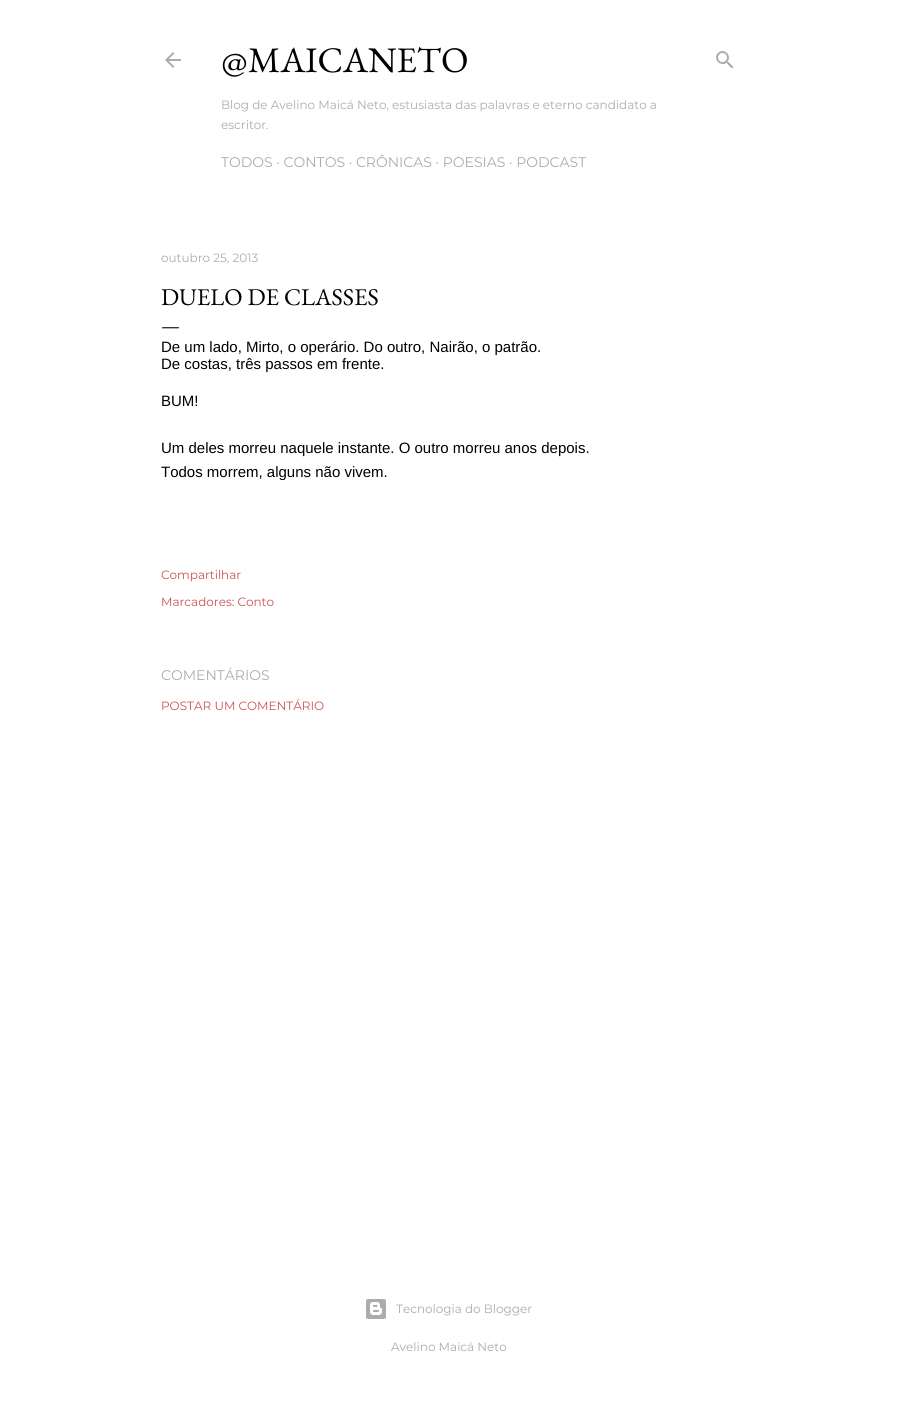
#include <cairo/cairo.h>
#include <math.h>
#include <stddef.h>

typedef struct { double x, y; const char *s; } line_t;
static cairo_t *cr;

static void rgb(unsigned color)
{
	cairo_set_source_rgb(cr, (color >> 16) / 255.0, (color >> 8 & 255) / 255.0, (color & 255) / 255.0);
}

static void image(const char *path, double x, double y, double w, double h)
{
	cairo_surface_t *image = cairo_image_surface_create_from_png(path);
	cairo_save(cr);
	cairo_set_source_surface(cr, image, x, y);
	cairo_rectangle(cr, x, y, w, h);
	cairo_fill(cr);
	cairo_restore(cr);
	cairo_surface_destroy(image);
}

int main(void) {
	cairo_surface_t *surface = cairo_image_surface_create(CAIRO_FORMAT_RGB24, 897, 1404);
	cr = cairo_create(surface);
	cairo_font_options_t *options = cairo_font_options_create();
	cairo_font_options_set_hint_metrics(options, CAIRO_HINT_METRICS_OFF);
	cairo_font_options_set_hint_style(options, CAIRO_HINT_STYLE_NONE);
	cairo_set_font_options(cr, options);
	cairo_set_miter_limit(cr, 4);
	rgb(0xffffff);
	cairo_paint(cr);
	image("img/1.png", 165, 52, 16, 16);
	image("img/2.png", 716, 51, 18, 18);
	image("img/3.png", 366, 1299, 20, 20);
	cairo_select_font_face(cr, "EB Garamond", CAIRO_FONT_SLANT_NORMAL, CAIRO_FONT_WEIGHT_NORMAL);
	cairo_set_font_size(cr, 36);
	rgb(0x000000);
	cairo_move_to(cr, 221, 72);
	cairo_show_text(cr, "@MAICANETO");
	cairo_select_font_face(cr, "Montserrat", CAIRO_FONT_SLANT_NORMAL, CAIRO_FONT_WEIGHT_NORMAL);
	cairo_set_font_size(cr, 12);
	rgb(0xacacac);
	cairo_move_to(cr, 221, 109);
	cairo_show_text(cr, "Blog de Avelino Maicá Neto, estusiasta das palavras e eterno candidato a");
	cairo_move_to(cr, 221, 129);
	cairo_show_text(cr, "escritor.");
	cairo_set_font_size(cr, 14);
	cairo_move_to(cr, 221, 167);
	cairo_show_text(cr, "TODOS · CONTOS · CRÔNICAS · POESIAS · PODCAST");
	cairo_set_font_size(cr, 12);
	cairo_move_to(cr, 161, 262);
	cairo_show_text(cr, "outubro 25, 2013");
	cairo_select_font_face(cr, "EB Garamond", CAIRO_FONT_SLANT_NORMAL, CAIRO_FONT_WEIGHT_NORMAL);
	cairo_set_font_size(cr, 24);
	rgb(0x000000);
	cairo_move_to(cr, 161, 305);
	cairo_show_text(cr, "DUELO DE CLASSES");
	cairo_set_font_size(cr, 20);
	cairo_move_to(cr, 161, 332);
	cairo_show_text(cr, "—");
	cairo_select_font_face(cr, "Liberation Sans", CAIRO_FONT_SLANT_NORMAL, CAIRO_FONT_WEIGHT_NORMAL);
	cairo_set_font_size(cr, 15);
	{
		static const line_t items[] = {
			{161, 352, "De um lado, Mirto, o operário. Do outro, Nairão, o patrão."},
			{161, 369, "De costas, três passos em frente."},
			{161, 406, "BUM!"},
			{161, 453, "Um deles morreu naquele instante. O outro morreu anos depois."},
			{161, 477, "Todos morrem, alguns não vivem."},
		};
		for (size_t i = 0; i < sizeof items / sizeof *items; i++) {
			cairo_move_to(cr, items[i].x, items[i].y);
			cairo_show_text(cr, items[i].s);
		}
	}
	cairo_select_font_face(cr, "Montserrat", CAIRO_FONT_SLANT_NORMAL, CAIRO_FONT_WEIGHT_NORMAL);
	cairo_set_font_size(cr, 12);
	rgb(0xcc5252);
	cairo_move_to(cr, 161, 579);
	cairo_show_text(cr, "Compartilhar");
	cairo_move_to(cr, 161, 606);
	cairo_show_text(cr, "Marcadores: Conto");
	cairo_set_font_size(cr, 14);
	rgb(0xacacac);
	cairo_move_to(cr, 161, 680);
	cairo_show_text(cr, "COMENTÁRIOS");
	cairo_set_font_size(cr, 12);
	rgb(0xcc5252);
	cairo_move_to(cr, 161, 710);
	cairo_show_text(cr, "POSTAR UM COMENTÁRIO");
	rgb(0xacacac);
	cairo_move_to(cr, 396, 1313);
	cairo_show_text(cr, "Tecnologia do Blogger");
	cairo_move_to(cr, 391, 1351);
	cairo_show_text(cr, "Avelino Maicá Neto");
	cairo_surface_write_to_png(surface, "page.png");
	cairo_font_options_destroy(options);
	cairo_destroy(cr);
	cairo_surface_destroy(surface);
	return 0;
}
